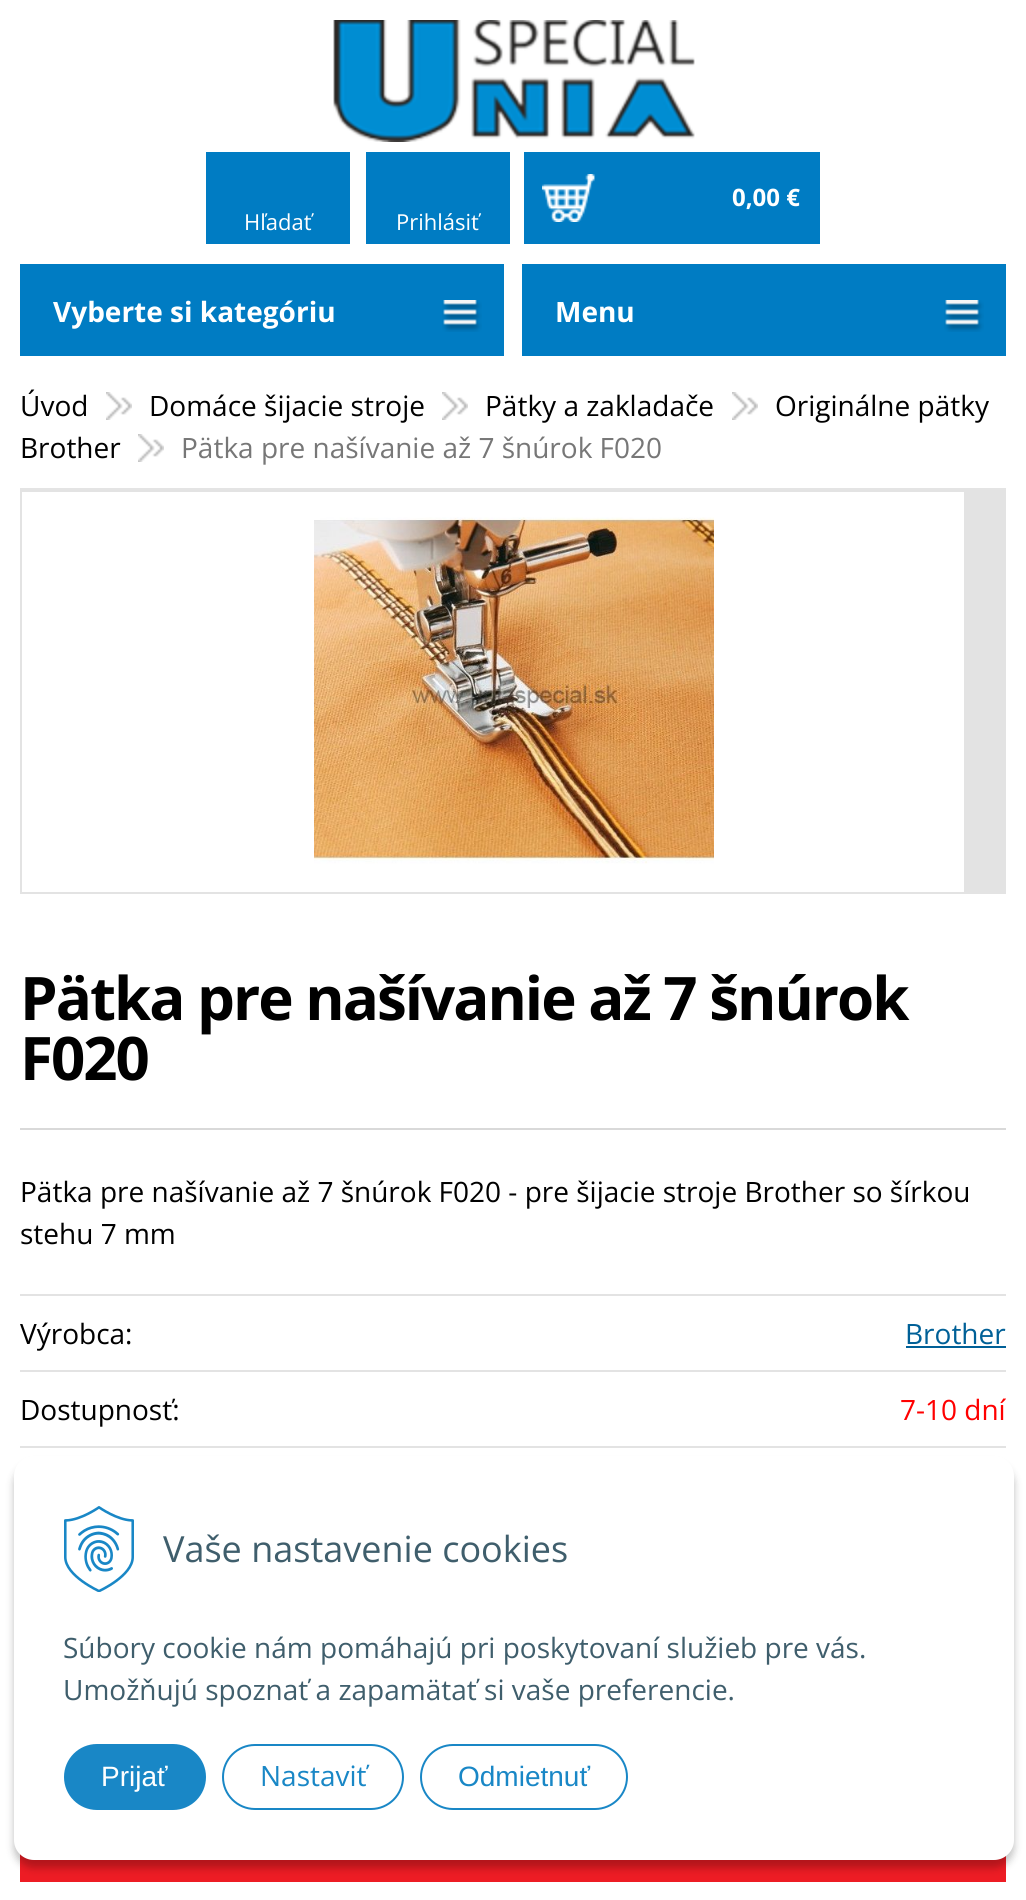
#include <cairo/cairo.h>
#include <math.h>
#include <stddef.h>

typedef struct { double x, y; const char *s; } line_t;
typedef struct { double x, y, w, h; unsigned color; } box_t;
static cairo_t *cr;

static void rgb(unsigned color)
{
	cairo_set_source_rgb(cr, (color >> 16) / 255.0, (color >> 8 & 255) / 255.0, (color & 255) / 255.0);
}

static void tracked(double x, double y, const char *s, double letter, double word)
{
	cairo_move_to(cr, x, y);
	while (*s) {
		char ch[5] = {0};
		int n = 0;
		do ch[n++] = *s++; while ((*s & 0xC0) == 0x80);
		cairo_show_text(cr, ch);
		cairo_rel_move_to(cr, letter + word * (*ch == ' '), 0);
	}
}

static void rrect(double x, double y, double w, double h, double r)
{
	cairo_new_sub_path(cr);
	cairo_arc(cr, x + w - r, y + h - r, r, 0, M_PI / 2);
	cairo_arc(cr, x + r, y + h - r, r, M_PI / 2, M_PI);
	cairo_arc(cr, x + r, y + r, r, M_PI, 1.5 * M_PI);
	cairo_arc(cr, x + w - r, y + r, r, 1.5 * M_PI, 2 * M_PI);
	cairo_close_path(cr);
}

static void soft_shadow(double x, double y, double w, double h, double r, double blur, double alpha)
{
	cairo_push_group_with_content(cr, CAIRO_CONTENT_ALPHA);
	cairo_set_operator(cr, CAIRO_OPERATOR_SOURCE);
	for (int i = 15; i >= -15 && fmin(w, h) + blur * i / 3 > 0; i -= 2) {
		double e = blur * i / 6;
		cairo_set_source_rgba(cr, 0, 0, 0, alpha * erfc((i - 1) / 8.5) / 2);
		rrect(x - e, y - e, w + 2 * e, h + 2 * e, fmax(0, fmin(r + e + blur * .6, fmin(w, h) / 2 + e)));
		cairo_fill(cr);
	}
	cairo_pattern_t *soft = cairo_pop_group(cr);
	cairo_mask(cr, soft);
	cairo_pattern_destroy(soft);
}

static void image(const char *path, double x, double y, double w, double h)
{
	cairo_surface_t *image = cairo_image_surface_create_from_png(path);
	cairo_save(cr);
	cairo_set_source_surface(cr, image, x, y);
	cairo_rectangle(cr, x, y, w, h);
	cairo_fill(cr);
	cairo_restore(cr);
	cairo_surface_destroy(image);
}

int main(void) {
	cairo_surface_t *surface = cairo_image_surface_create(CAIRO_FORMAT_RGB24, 1026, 1900);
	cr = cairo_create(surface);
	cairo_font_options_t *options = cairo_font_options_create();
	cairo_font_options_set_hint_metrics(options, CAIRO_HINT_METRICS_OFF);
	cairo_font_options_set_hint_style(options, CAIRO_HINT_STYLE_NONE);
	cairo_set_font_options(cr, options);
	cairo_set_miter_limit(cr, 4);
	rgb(0xffffff);
	cairo_paint(cr);
	image("img/1.png", 333, 20, 362, 122);
	rgb(0x007cc3);
	cairo_rectangle(cr, 524, 152, 296, 92);
	cairo_fill(cr);
	image("img/2.png", 542, 174, 53, 48);
	{
		static const box_t items[] = {
			{206, 152, 144, 92, 0x007cc3},
			{366, 152, 144, 92, 0x007cc3},
			{20, 264, 484, 92, 0x007cc3},
		};
		for (size_t i = 0; i < sizeof items / sizeof *items; i++) {
			rgb(items[i].color);
			cairo_rectangle(cr, items[i].x, items[i].y, items[i].w, items[i].h);
			cairo_fill(cr);
		}
	}
	image("img/3.png", 442, 300, 40, 32);
	image("img/4.png", 106, 392, 26, 28);
	image("img/4.png", 442, 392, 26, 28);
	image("img/4.png", 732, 392, 26, 28);
	image("img/4.png", 138, 434, 26, 28);
	rgb(0xe4e4e4);
	cairo_rectangle(cr, 20, 488, 986, 2);
	cairo_fill(cr);
	cairo_rectangle(cr, 21, 491, 984, 402);
	rgb(0xe3e3e3);
	cairo_stroke(cr);
	image("img/5.png", 314, 517, 400, 347);
	{
		static const box_t items[] = {
			{964, 492, 40, 400, 0xe3e3e3},
			{20, 1128, 986, 2, 0xd9d9d9},
			{20, 1294, 986, 2, 0xe3e3e3},
			{906, 1346, 100, 2, 0x006097},
			{20, 1370, 986, 2, 0xe3e3e3},
			{20, 1446, 986, 2, 0xe3e3e3},
			{20, 1854, 986, 28, 0xed1c24},
			{522, 264, 484, 92, 0x007cc3},
		};
		for (size_t i = 0; i < sizeof items / sizeof *items; i++) {
			rgb(items[i].color);
			cairo_rectangle(cr, items[i].x, items[i].y, items[i].w, items[i].h);
			cairo_fill(cr);
		}
	}
	image("img/3.png", 944, 300, 40, 32);
	rgb(0x000000);
	soft_shadow(14, 1464, 1000, 404, 20, 4, 0.25);
	rgb(0xffffff);
	rrect(14, 1456, 1000, 404, 20);
	cairo_fill(cr);
	image("img/6.png", 64, 1506, 70, 86);
	rgb(0x1987c6);
	rrect(65, 1745, 140, 64, 32);
	cairo_fill_preserve(cr);
	cairo_stroke(cr);
	rrect(223, 1745, 180, 64, 32);
	cairo_stroke(cr);
	rrect(421, 1745, 206, 64, 32);
	cairo_stroke(cr);
	cairo_select_font_face(cr, "Open Sans", CAIRO_FONT_SLANT_NORMAL, CAIRO_FONT_WEIGHT_BOLD);
	cairo_set_font_size(cr, 24);
	rgb(0xffffff);
	cairo_move_to(cr, 732, 206);
	cairo_show_text(cr, "0,00 €");
	cairo_select_font_face(cr, "Open Sans", CAIRO_FONT_SLANT_NORMAL, CAIRO_FONT_WEIGHT_NORMAL);
	cairo_set_font_size(cr, 22);
	cairo_move_to(cr, 244, 230);
	cairo_show_text(cr, "Hľadať");
	cairo_move_to(cr, 396, 230);
	cairo_show_text(cr, "Prihlásiť");
	cairo_select_font_face(cr, "Open Sans", CAIRO_FONT_SLANT_NORMAL, CAIRO_FONT_WEIGHT_BOLD);
	cairo_set_font_size(cr, 28);
	cairo_move_to(cr, 53, 322);
	cairo_show_text(cr, "Vyberte si kategóriu");
	cairo_select_font_face(cr, "Open Sans", CAIRO_FONT_SLANT_NORMAL, CAIRO_FONT_WEIGHT_NORMAL);
	rgb(0x000000);
	{
		static const line_t items[] = {
			{20, 416, "Úvod"},
			{149, 416, "Domáce šijacie stroje"},
			{485, 416, "Pätky a zakladače"},
			{775, 416, "Originálne pätky"},
			{20, 458, "Brother"},
		};
		for (size_t i = 0; i < sizeof items / sizeof *items; i++) {
			cairo_move_to(cr, items[i].x, items[i].y);
			cairo_show_text(cr, items[i].s);
		}
	}
	rgb(0x777777);
	cairo_move_to(cr, 181, 458);
	cairo_show_text(cr, "Pätka pre našívanie až 7 šnúrok F020");
	cairo_select_font_face(cr, "Open Sans", CAIRO_FONT_SLANT_NORMAL, CAIRO_FONT_WEIGHT_BOLD);
	cairo_set_font_size(cr, 60);
	rgb(0x000000);
	tracked(20, 1020, "Pätka pre našívanie až 7 šnúrok", -2, 0);
	tracked(20, 1080, "F020", -2, 0);
	cairo_select_font_face(cr, "Open Sans", CAIRO_FONT_SLANT_NORMAL, CAIRO_FONT_WEIGHT_NORMAL);
	cairo_set_font_size(cr, 28);
	{
		static const line_t items[] = {
			{20, 1202, "Pätka pre našívanie až 7 šnúrok F020 - pre šijacie stroje Brother so šírkou"},
			{20, 1244, "stehu 7 mm"},
			{20, 1344, "Výrobca:"},
		};
		for (size_t i = 0; i < sizeof items / sizeof *items; i++) {
			cairo_move_to(cr, items[i].x, items[i].y);
			cairo_show_text(cr, items[i].s);
		}
	}
	rgb(0x006097);
	cairo_move_to(cr, 905, 1344);
	cairo_show_text(cr, "Brother");
	rgb(0x000000);
	cairo_move_to(cr, 20, 1420);
	cairo_show_text(cr, "Dostupnosť:");
	rgb(0xff0000);
	cairo_move_to(cr, 900, 1420);
	cairo_show_text(cr, "7-10 dní");
	cairo_select_font_face(cr, "Open Sans", CAIRO_FONT_SLANT_NORMAL, CAIRO_FONT_WEIGHT_BOLD);
	rgb(0xffffff);
	cairo_move_to(cr, 555, 322);
	cairo_show_text(cr, "Menu");
	cairo_select_font_face(cr, "Open Sans", CAIRO_FONT_SLANT_NORMAL, CAIRO_FONT_WEIGHT_NORMAL);
	cairo_set_font_size(cr, 36);
	rgb(0x3f5e6c);
	cairo_move_to(cr, 163, 1562);
	cairo_show_text(cr, "Vaše nastavenie cookies");
	cairo_set_font_size(cr, 28);
	cairo_move_to(cr, 63, 1658);
	cairo_show_text(cr, "Súbory cookie nám pomáhajú pri poskytovaní služieb pre vás.");
	cairo_move_to(cr, 63, 1700);
	cairo_show_text(cr, "Umožňujú spoznať a zapamätať si vaše preferencie.");
	cairo_select_font_face(cr, "Liberation Sans", CAIRO_FONT_SLANT_NORMAL, CAIRO_FONT_WEIGHT_NORMAL);
	rgb(0xffffff);
	cairo_move_to(cr, 101, 1786);
	cairo_show_text(cr, "Prijať");
	cairo_select_font_face(cr, "Open Sans", CAIRO_FONT_SLANT_NORMAL, CAIRO_FONT_WEIGHT_NORMAL);
	rgb(0x1987c6);
	cairo_move_to(cr, 260, 1786);
	cairo_show_text(cr, "Nastaviť");
	cairo_select_font_face(cr, "Liberation Sans", CAIRO_FONT_SLANT_NORMAL, CAIRO_FONT_WEIGHT_NORMAL);
	cairo_move_to(cr, 458, 1786);
	cairo_show_text(cr, "Odmietnuť");
	cairo_surface_write_to_png(surface, "page.png");
	cairo_font_options_destroy(options);
	cairo_destroy(cr);
	cairo_surface_destroy(surface);
	return 0;
}
